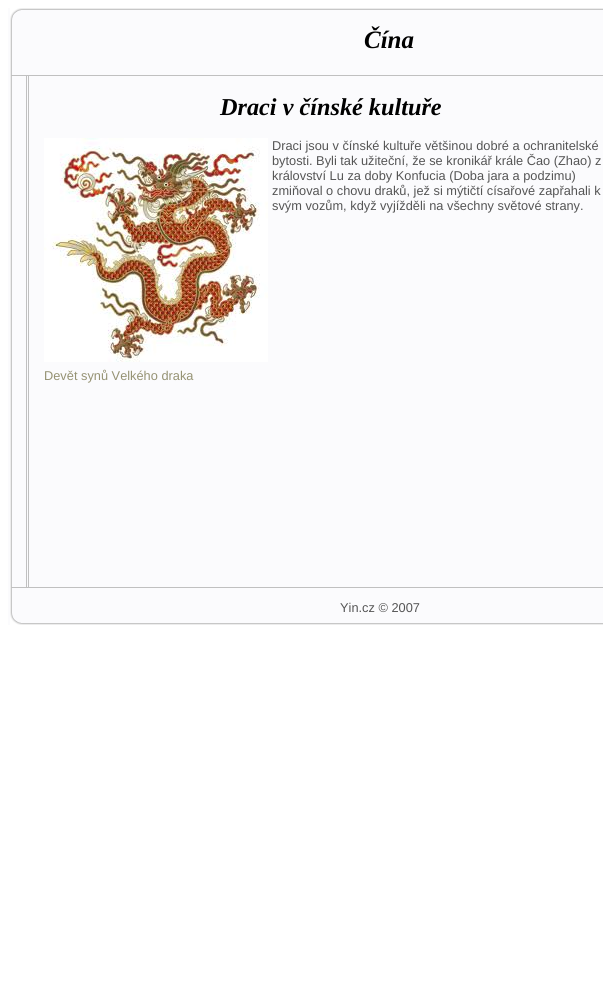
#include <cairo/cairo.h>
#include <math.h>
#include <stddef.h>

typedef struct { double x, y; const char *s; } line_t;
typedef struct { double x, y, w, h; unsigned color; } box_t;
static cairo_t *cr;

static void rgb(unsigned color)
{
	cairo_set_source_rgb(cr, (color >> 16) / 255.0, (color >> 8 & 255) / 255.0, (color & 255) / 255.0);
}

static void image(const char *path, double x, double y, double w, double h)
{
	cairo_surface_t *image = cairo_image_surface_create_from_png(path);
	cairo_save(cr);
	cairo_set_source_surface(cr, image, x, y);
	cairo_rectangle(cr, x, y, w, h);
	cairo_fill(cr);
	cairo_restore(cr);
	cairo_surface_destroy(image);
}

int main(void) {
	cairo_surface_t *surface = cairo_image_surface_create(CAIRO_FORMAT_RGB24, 603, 986);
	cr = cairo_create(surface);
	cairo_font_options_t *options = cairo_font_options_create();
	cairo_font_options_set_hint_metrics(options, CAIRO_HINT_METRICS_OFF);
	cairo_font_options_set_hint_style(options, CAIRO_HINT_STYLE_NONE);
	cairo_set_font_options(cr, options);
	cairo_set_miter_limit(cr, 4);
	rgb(0xffffff);
	cairo_paint(cr);
	rgb(0xfbfbfd);
	cairo_rectangle(cr, 8, 8, 595, 617);
	cairo_fill(cr);
	image("img/1.png", 10, 20, 2, 593);
	image("img/2.png", 10, 8, 593, 12);
	{
		static const box_t items[] = {
			{11, 75, 592, 1, 0xc0c0c0},
			{26, 76, 1, 511, 0xc0c0c0},
			{28, 76, 1, 511, 0xc0c0c0},
		};
		for (size_t i = 0; i < sizeof items / sizeof *items; i++) {
			rgb(items[i].color);
			cairo_rectangle(cr, items[i].x, items[i].y, items[i].w, items[i].h);
			cairo_fill(cr);
		}
	}
	image("img/3.png", 44, 138, 224, 224);
	cairo_rectangle(cr, 11, 587, 592, 1);
	cairo_fill(cr);
	image("img/4.png", 10, 613, 593, 12);
	cairo_select_font_face(cr, "Liberation Serif", CAIRO_FONT_SLANT_ITALIC, CAIRO_FONT_WEIGHT_BOLD);
	cairo_set_font_size(cr, 25);
	rgb(0x000000);
	cairo_move_to(cr, 364, 48);
	cairo_show_text(cr, "Čína");
	cairo_set_font_size(cr, 24.25);
	cairo_move_to(cr, 220, 115);
	cairo_show_text(cr, "Draci v čínské kultuře");
	cairo_select_font_face(cr, "Liberation Sans", CAIRO_FONT_SLANT_NORMAL, CAIRO_FONT_WEIGHT_NORMAL);
	cairo_set_font_size(cr, 12.8);
	rgb(0x555555);
	{
		static const line_t items[] = {
			{272, 150, "Draci jsou v čínské kultuře většinou dobré a ochranitelské"},
			{272, 165, "bytosti. Byli tak užiteční, že se kronikář krále Čao (Zhao) z"},
			{272, 180, "království Lu za doby Konfucia (Doba jara a podzimu)"},
			{272, 195, "zmiňoval o chovu draků, jež si mýtičtí císařové zapřahali k"},
			{272, 210, "svým vozům, když vyjížděli na všechny světové strany."},
		};
		for (size_t i = 0; i < sizeof items / sizeof *items; i++) {
			cairo_move_to(cr, items[i].x, items[i].y);
			cairo_show_text(cr, items[i].s);
		}
	}
	rgb(0x959273);
	cairo_move_to(cr, 44, 380);
	cairo_show_text(cr, "Devět synů Velkého draka");
	rgb(0x555555);
	cairo_move_to(cr, 340, 612);
	cairo_show_text(cr, "Yin.cz © 2007");
	cairo_surface_write_to_png(surface, "page.png");
	cairo_font_options_destroy(options);
	cairo_destroy(cr);
	cairo_surface_destroy(surface);
	return 0;
}
